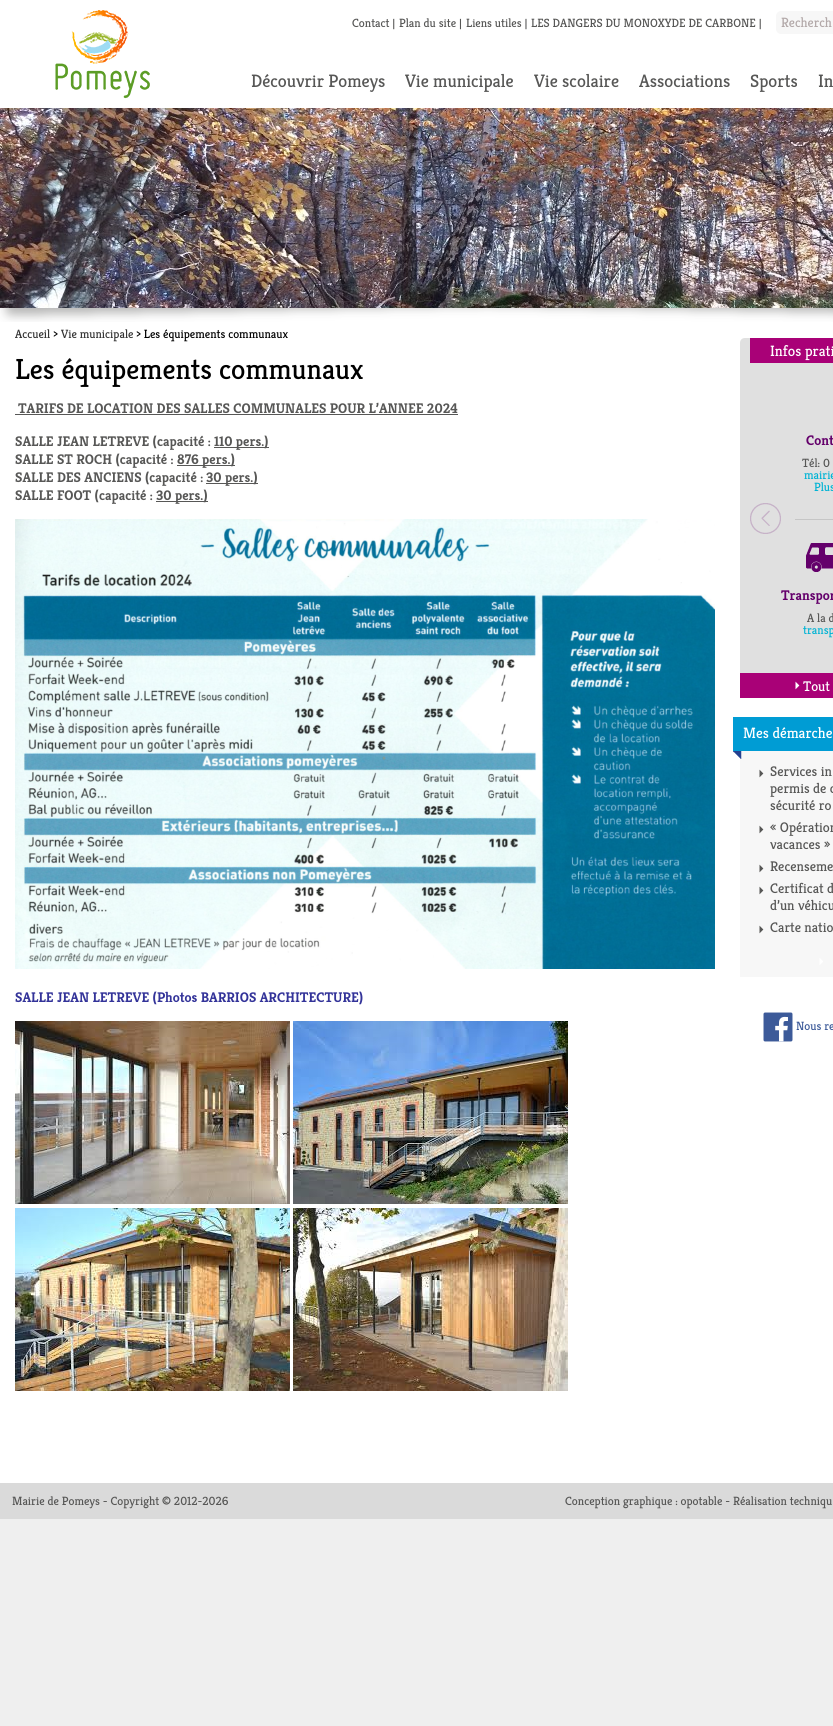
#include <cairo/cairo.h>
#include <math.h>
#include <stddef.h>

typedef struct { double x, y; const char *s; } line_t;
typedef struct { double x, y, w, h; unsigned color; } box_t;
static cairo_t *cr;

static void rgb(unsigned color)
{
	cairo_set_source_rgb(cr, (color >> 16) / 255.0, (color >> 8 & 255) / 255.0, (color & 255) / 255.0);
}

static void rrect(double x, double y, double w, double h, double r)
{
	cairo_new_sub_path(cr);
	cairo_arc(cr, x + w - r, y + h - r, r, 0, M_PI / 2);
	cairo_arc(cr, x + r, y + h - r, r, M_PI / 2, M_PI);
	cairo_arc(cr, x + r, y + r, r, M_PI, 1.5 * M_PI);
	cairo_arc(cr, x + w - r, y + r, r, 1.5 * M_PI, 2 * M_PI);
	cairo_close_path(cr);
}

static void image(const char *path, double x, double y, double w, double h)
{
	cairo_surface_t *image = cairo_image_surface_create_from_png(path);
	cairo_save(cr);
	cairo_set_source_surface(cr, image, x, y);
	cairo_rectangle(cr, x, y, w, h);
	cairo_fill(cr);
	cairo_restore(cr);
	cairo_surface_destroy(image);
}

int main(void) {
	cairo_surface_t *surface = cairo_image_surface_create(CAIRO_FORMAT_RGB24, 833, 1726);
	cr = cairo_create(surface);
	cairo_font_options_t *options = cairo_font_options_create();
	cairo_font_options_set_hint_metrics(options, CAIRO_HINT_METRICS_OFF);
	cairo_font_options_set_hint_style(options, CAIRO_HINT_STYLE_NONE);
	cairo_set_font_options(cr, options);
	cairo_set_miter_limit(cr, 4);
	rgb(0xefefef);
	cairo_paint(cr);
	rgb(0xffffff);
	cairo_rectangle(cr, 0, 0, 833, 1483);
	cairo_fill(cr);
	image("img/1.png", 55, 10, 95, 89);
	rgb(0xf7f7f7);
	rrect(776, 11, 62, 23, 5);
	cairo_fill(cr);
	image("img/2.png", 0, 108, 833, 200);
	image("img/3.png", 0, 308, 833, 14);
	{
		static const box_t items[] = {
			{15, 414, 443, 1, 0x575756},
			{214, 447, 55, 1, 0x575756},
			{177, 465, 58, 1, 0x575756},
			{206, 483, 52, 1, 0x575756},
			{156, 501, 52, 1, 0x575756},
		};
		for (size_t i = 0; i < sizeof items / sizeof *items; i++) {
			rgb(items[i].color);
			cairo_rectangle(cr, items[i].x, items[i].y, items[i].w, items[i].h);
			cairo_fill(cr);
		}
	}
	image("img/4.png", 15, 519, 700, 450);
	image("img/5.png", 15, 1021, 275, 183);
	image("img/6.png", 293, 1021, 275, 183);
	image("img/7.png", 15, 1208, 275, 183);
	image("img/8.png", 293, 1208, 275, 183);
	rgb(0xe0e0e0);
	cairo_new_path(cr);
	cairo_move_to(cr, 745, 338);
	cairo_line_to(cr, 833, 338);
	cairo_curve_to(cr, 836, 338, 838, 340, 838, 343);
	cairo_line_to(cr, 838, 698);
	cairo_line_to(cr, 740, 698);
	cairo_line_to(cr, 740, 343);
	cairo_curve_to(cr, 740, 340, 742, 338, 745, 338);
	cairo_close_path(cr);
	cairo_fill(cr);
	rgb(0xa90177);
	cairo_rectangle(cr, 750, 338, 83, 25);
	cairo_fill(cr);
	image("img/9.png", 750, 503, 31, 31);
	image("img/10.png", 806, 543, 27, 29);
	rgb(0xc6c6c6);
	cairo_rectangle(cr, 795, 519, 38, 1);
	cairo_fill(cr);
	rgb(0xa90177);
	cairo_rectangle(cr, 740, 673, 93, 25);
	cairo_fill(cr);
	image("img/11.png", 795, 681, 5, 9);
	rgb(0xf7f7f7);
	cairo_rectangle(cr, 740, 751, 93, 226);
	cairo_fill(cr);
	image("img/12.png", 733, 717, 100, 42);
	image("img/13.png", 759, 769, 5, 9);
	image("img/13.png", 759, 825, 5, 9);
	image("img/13.png", 759, 864, 5, 9);
	image("img/13.png", 759, 886, 5, 9);
	image("img/13.png", 759, 925, 5, 9);
	image("img/14.png", 819, 958, 4, 7);
	image("img/15.png", 763, 1012, 30, 30);
	rgb(0xdadada);
	cairo_rectangle(cr, 0, 1483, 833, 36);
	cairo_fill(cr);
	cairo_select_font_face(cr, "Kreon", CAIRO_FONT_SLANT_NORMAL, CAIRO_FONT_WEIGHT_NORMAL);
	cairo_set_font_size(cr, 12);
	rgb(0x575756);
	{
		static const line_t items[] = {
			{352, 27, "Contact |"},
			{399, 27, "Plan du site |"},
			{466, 27, "Liens utiles |"},
			{531, 27, "LES DANGERS DU MONOXYDE DE CARBONE |"},
		};
		for (size_t i = 0; i < sizeof items / sizeof *items; i++) {
			cairo_move_to(cr, items[i].x, items[i].y);
			cairo_show_text(cr, items[i].s);
		}
	}
	cairo_set_font_size(cr, 13.5);
	rgb(0xb3a9a9);
	cairo_move_to(cr, 781, 27);
	cairo_show_text(cr, "Recherch");
	cairo_set_font_size(cr, 18);
	rgb(0x575756);
	{
		static const line_t items[] = {
			{251, 87, "Découvrir Pomeys"},
			{405, 87, "Vie municipale"},
			{534, 87, "Vie scolaire"},
			{639, 87, "Associations"},
			{750, 87, "Sports"},
			{818, 87, "In"},
		};
		for (size_t i = 0; i < sizeof items / sizeof *items; i++) {
			cairo_move_to(cr, items[i].x, items[i].y);
			cairo_show_text(cr, items[i].s);
		}
	}
	cairo_set_font_size(cr, 12);
	rgb(0x333333);
	cairo_move_to(cr, 15, 338);
	cairo_show_text(cr, "Accueil");
	rgb(0x000000);
	cairo_move_to(cr, 53, 338);
	cairo_show_text(cr, ">");
	rgb(0x333333);
	cairo_move_to(cr, 61, 338);
	cairo_show_text(cr, "Vie municipale");
	rgb(0x000000);
	cairo_move_to(cr, 136, 338);
	cairo_show_text(cr, "> Les équipements communaux");
	cairo_set_font_size(cr, 29);
	cairo_move_to(cr, 15, 379);
	cairo_show_text(cr, "Les équipements communaux");
	cairo_select_font_face(cr, "Kreon", CAIRO_FONT_SLANT_NORMAL, CAIRO_FONT_WEIGHT_BOLD);
	cairo_set_font_size(cr, 14);
	rgb(0x575756);
	{
		static const line_t items[] = {
			{18, 413, "TARIFS DE LOCATION DES SALLES COMMUNALES POUR L’ANNEE 2024"},
			{15, 446, "SALLE JEAN LETREVE (capacité :"},
			{214, 446, "110 pers.)"},
			{15, 464, "SALLE ST ROCH (capacité :"},
			{177, 464, "876 pers.)"},
			{15, 482, "SALLE DES ANCIENS (capacité :"},
			{206, 482, "30 pers.)"},
			{15, 500, "SALLE FOOT (capacité :"},
			{156, 500, "30 pers.)"},
		};
		for (size_t i = 0; i < sizeof items / sizeof *items; i++) {
			cairo_move_to(cr, items[i].x, items[i].y);
			cairo_show_text(cr, items[i].s);
		}
	}
	rgb(0x333399);
	cairo_move_to(cr, 15, 1002);
	cairo_show_text(cr, "SALLE JEAN LETREVE (Photos BARRIOS ARCHITECTURE)");
	cairo_select_font_face(cr, "Kreon", CAIRO_FONT_SLANT_NORMAL, CAIRO_FONT_WEIGHT_NORMAL);
	cairo_set_font_size(cr, 15);
	rgb(0xffffff);
	cairo_move_to(cr, 770, 356);
	cairo_show_text(cr, "Infos prati");
	cairo_select_font_face(cr, "Kreon", CAIRO_FONT_SLANT_NORMAL, CAIRO_FONT_WEIGHT_BOLD);
	cairo_set_font_size(cr, 14);
	rgb(0x64006b);
	cairo_move_to(cr, 806, 445);
	cairo_show_text(cr, "Cont");
	cairo_select_font_face(cr, "Kreon", CAIRO_FONT_SLANT_NORMAL, CAIRO_FONT_WEIGHT_NORMAL);
	cairo_set_font_size(cr, 12);
	rgb(0x575756);
	cairo_move_to(cr, 802, 467);
	cairo_show_text(cr, "Tél: 0");
	rgb(0x00b3d4);
	cairo_move_to(cr, 804, 479);
	cairo_show_text(cr, "mairie");
	cairo_move_to(cr, 814, 491);
	cairo_show_text(cr, "Plus");
	cairo_select_font_face(cr, "Kreon", CAIRO_FONT_SLANT_NORMAL, CAIRO_FONT_WEIGHT_BOLD);
	cairo_set_font_size(cr, 14);
	rgb(0x64006b);
	cairo_move_to(cr, 781, 600);
	cairo_show_text(cr, "Transpor");
	cairo_select_font_face(cr, "Kreon", CAIRO_FONT_SLANT_NORMAL, CAIRO_FONT_WEIGHT_NORMAL);
	cairo_set_font_size(cr, 12);
	rgb(0x575756);
	cairo_move_to(cr, 807, 622);
	cairo_show_text(cr, "A la d");
	rgb(0x00b3d4);
	cairo_move_to(cr, 803, 634);
	cairo_show_text(cr, "transp");
	cairo_set_font_size(cr, 14);
	rgb(0xffffff);
	cairo_move_to(cr, 803, 691);
	cairo_show_text(cr, "Tout");
	cairo_set_font_size(cr, 15);
	cairo_move_to(cr, 743, 738);
	cairo_show_text(cr, "Mes démarche");
	cairo_set_font_size(cr, 14);
	rgb(0x575756);
	{
		static const line_t items[] = {
			{770, 776, "Services in"},
			{770, 793, "permis de c"},
			{770, 810, "sécurité ro"},
			{770, 832, "« Opération"},
			{770, 849, "vacances »"},
			{770, 871, "Recenseme"},
			{770, 893, "Certificat d"},
			{770, 910, "d’un véhicu"},
			{770, 932, "Carte natio"},
		};
		for (size_t i = 0; i < sizeof items / sizeof *items; i++) {
			cairo_move_to(cr, items[i].x, items[i].y);
			cairo_show_text(cr, items[i].s);
		}
	}
	cairo_set_font_size(cr, 12);
	rgb(0x3c5a99);
	cairo_move_to(cr, 796, 1030);
	cairo_show_text(cr, "Nous re");
	rgb(0x575756);
	cairo_move_to(cr, 12, 1505);
	cairo_show_text(cr, "Mairie de Pomeys - Copyright © 2012-2026");
	cairo_move_to(cr, 565, 1505);
	cairo_show_text(cr, "Conception graphique : opotable - Réalisation techniqu");
	cairo_surface_write_to_png(surface, "page.png");
	cairo_font_options_destroy(options);
	cairo_destroy(cr);
	cairo_surface_destroy(surface);
	return 0;
}
